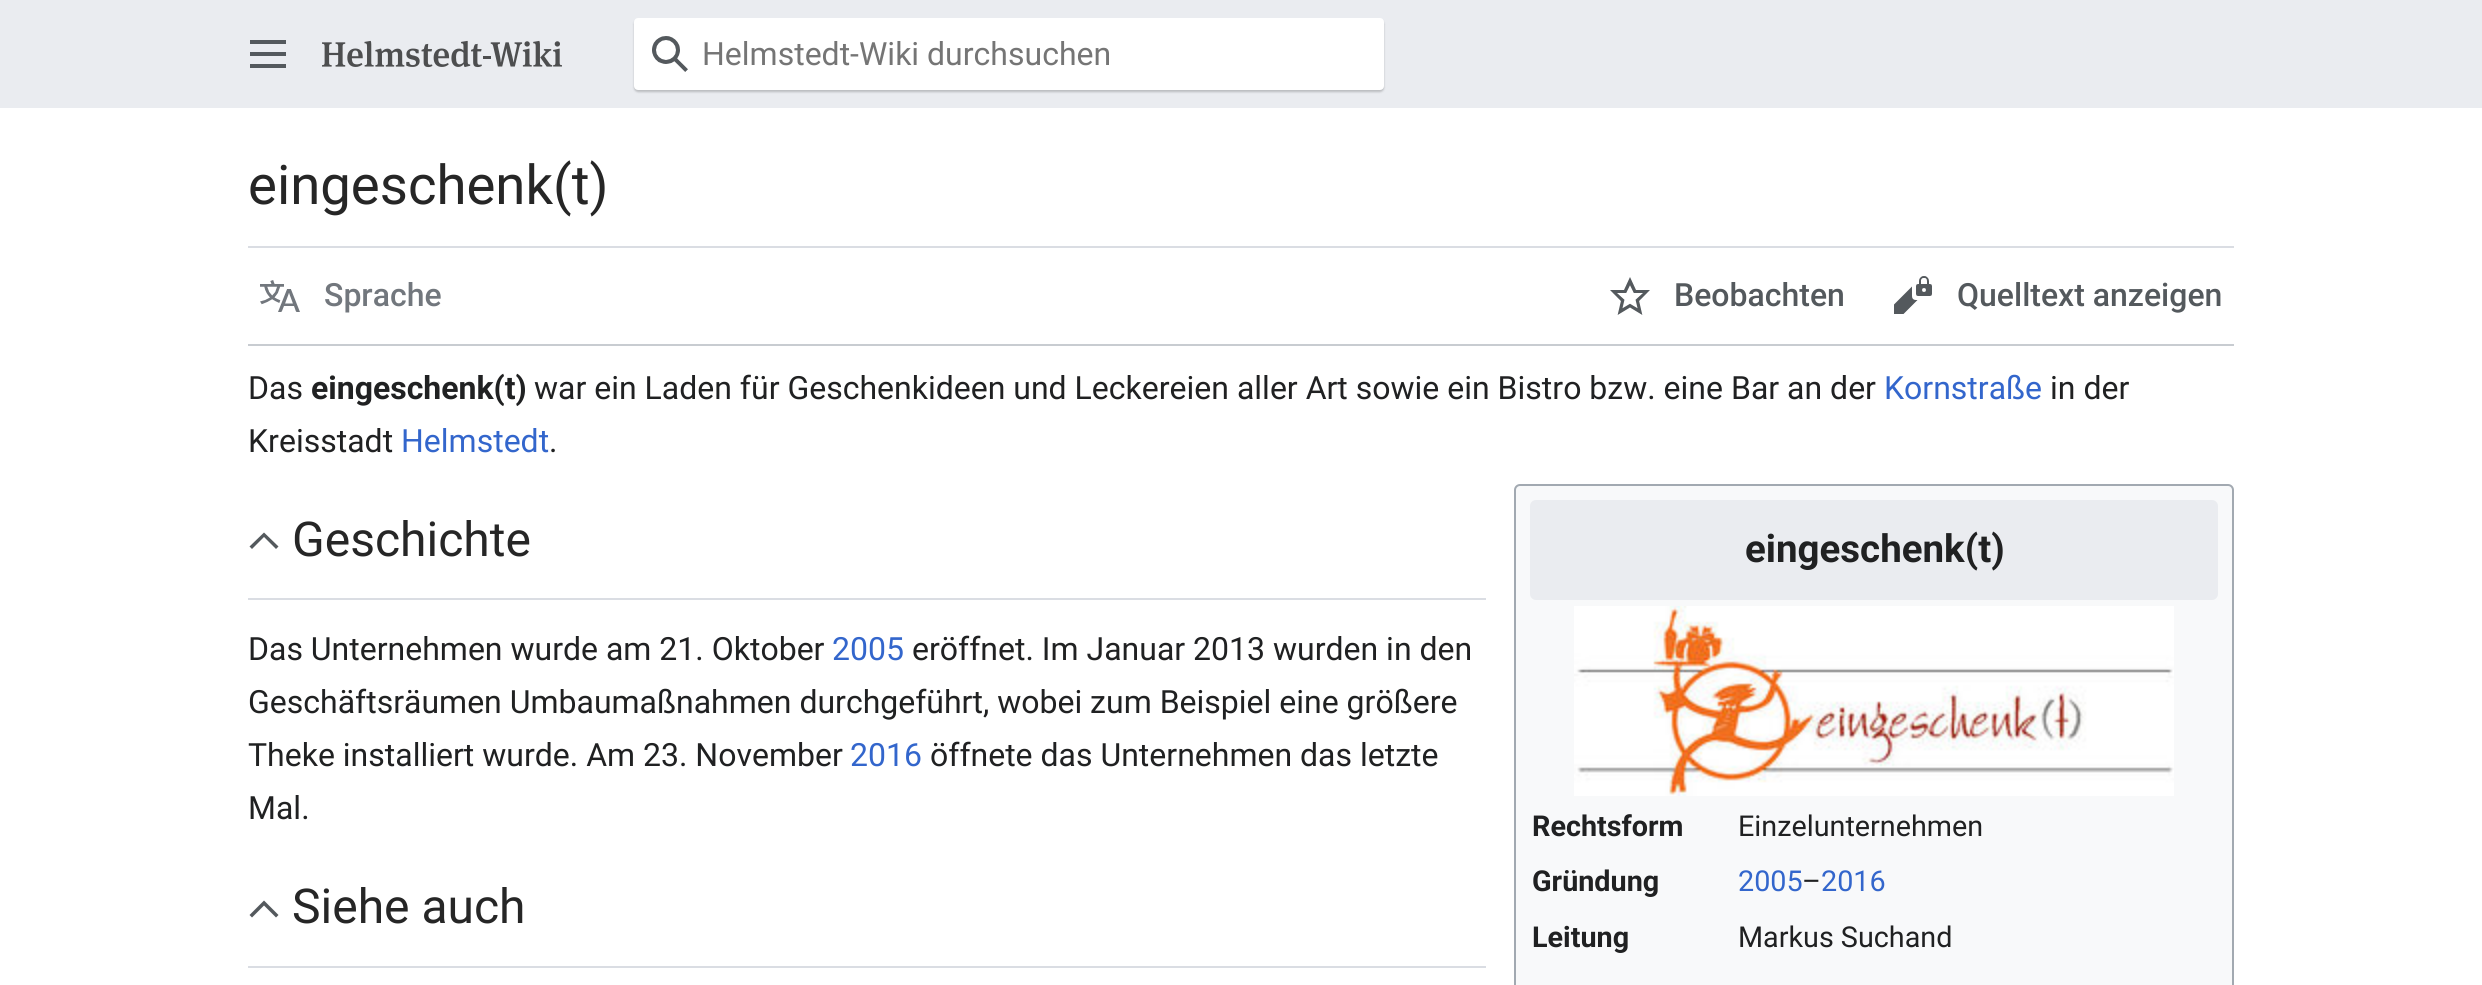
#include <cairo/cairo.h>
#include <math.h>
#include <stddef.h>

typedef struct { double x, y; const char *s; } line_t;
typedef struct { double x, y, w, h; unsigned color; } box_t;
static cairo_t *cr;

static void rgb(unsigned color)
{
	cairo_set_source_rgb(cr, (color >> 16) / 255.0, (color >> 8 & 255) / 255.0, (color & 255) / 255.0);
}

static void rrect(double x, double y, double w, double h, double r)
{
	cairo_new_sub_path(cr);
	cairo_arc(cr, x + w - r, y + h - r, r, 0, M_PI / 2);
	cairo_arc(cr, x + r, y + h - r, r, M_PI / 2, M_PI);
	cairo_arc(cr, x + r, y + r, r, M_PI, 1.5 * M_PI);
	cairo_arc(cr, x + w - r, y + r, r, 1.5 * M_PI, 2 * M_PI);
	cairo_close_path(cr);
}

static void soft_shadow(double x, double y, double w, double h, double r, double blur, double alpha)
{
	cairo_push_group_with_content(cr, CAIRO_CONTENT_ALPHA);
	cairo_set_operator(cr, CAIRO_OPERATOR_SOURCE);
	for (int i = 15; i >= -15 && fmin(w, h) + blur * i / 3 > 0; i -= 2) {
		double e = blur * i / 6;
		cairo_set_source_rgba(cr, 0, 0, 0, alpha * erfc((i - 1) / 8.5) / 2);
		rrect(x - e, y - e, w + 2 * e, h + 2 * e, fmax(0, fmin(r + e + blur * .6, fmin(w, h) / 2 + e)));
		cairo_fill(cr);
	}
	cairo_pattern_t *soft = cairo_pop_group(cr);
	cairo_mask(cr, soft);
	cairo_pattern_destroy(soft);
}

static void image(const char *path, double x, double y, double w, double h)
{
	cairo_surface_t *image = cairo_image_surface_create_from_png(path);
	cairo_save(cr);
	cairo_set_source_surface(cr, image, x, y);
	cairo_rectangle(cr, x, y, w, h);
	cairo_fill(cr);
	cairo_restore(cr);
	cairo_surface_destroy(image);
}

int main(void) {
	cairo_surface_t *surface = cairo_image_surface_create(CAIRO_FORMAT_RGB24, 2482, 985);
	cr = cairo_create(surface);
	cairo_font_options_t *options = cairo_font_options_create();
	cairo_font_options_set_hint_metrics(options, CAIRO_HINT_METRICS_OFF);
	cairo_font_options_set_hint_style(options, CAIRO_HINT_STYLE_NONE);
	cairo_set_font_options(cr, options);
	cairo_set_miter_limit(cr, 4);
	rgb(0xeaecf0);
	cairo_paint(cr);
	image("img/1.png", 250, 40, 36, 28);
	image("img/2.png", 322, 40, 240, 28);
	rgb(0x000000);
	soft_shadow(634, 20, 750, 72, 4, 1, 0.2);
	rgb(0xffffff);
	rrect(635, 19, 748, 70, 3);
	cairo_fill_preserve(cr);
	cairo_stroke(cr);
	image("img/3.png", 652, 36, 36, 36);
	{
		static const box_t items[] = {
			{0, 108, 2482, 877, 0xffffff},
			{248, 246, 1986, 2, 0xdadde3},
			{248, 344, 1986, 2, 0xc8ccd1},
		};
		for (size_t i = 0; i < sizeof items / sizeof *items; i++) {
			rgb(items[i].color);
			cairo_rectangle(cr, items[i].x, items[i].y, items[i].w, items[i].h);
			cairo_fill(cr);
		}
	}
	image("img/4.png", 260, 280, 40, 32);
	image("img/5.png", 1610, 277, 40, 38);
	image("img/6.png", 1894, 276, 38, 38);
	rgb(0xf8f9fa);
	rrect(1515, 485, 718, 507, 5);
	cairo_fill_preserve(cr);
	rgb(0xa2a9b1);
	cairo_stroke(cr);
	rgb(0xeaecf0);
	rrect(1530, 500, 688, 100, 6);
	cairo_fill(cr);
	image("img/7.png", 1574, 606, 600, 190);
	rgb(0xdadde3);
	cairo_rectangle(cr, 248, 598, 1238, 2);
	cairo_fill(cr);
	rgb(0x54595d);
	cairo_new_path(cr);
	cairo_move_to(cr, 276, 549);
	cairo_line_to(cr, 264, 537);
	cairo_line_to(cr, 252, 549);
	cairo_line_to(cr, 249.5, 546.5);
	cairo_line_to(cr, 264, 532.5);
	cairo_line_to(cr, 278.5, 546.5);
	cairo_close_path(cr);
	cairo_fill(cr);
	rgb(0xdadde3);
	cairo_rectangle(cr, 248, 966, 1238, 2);
	cairo_fill(cr);
	rgb(0x54595d);
	cairo_new_path(cr);
	cairo_move_to(cr, 276, 917.5);
	cairo_line_to(cr, 264, 905.5);
	cairo_line_to(cr, 252, 917.5);
	cairo_line_to(cr, 249.5, 915);
	cairo_line_to(cr, 264, 900.5);
	cairo_line_to(cr, 278.5, 915);
	cairo_close_path(cr);
	cairo_fill(cr);
	cairo_select_font_face(cr, "Roboto", CAIRO_FONT_SLANT_NORMAL, CAIRO_FONT_WEIGHT_NORMAL);
	cairo_set_font_size(cr, 32);
	rgb(0x757575);
	cairo_move_to(cr, 702, 65);
	cairo_show_text(cr, "Helmstedt-Wiki durchsuchen");
	cairo_set_font_size(cr, 54.5);
	rgb(0x262626);
	cairo_move_to(cr, 248, 204);
	cairo_show_text(cr, "eingeschenk(t)");
	cairo_select_font_face(cr, "Roboto Medium", CAIRO_FONT_SLANT_NORMAL, CAIRO_FONT_WEIGHT_NORMAL);
	cairo_set_font_size(cr, 32);
	rgb(0x72777d);
	cairo_move_to(cr, 324, 306);
	cairo_show_text(cr, "Sprache");
	rgb(0x54595d);
	cairo_move_to(cr, 1674, 306);
	cairo_show_text(cr, "Beobachten");
	cairo_move_to(cr, 1957, 306);
	cairo_show_text(cr, "Quelltext anzeigen");
	cairo_select_font_face(cr, "Roboto", CAIRO_FONT_SLANT_NORMAL, CAIRO_FONT_WEIGHT_NORMAL);
	rgb(0x202122);
	cairo_move_to(cr, 248, 399);
	cairo_show_text(cr, "Das");
	cairo_select_font_face(cr, "Roboto", CAIRO_FONT_SLANT_NORMAL, CAIRO_FONT_WEIGHT_BOLD);
	cairo_move_to(cr, 311, 399);
	cairo_show_text(cr, "eingeschenk(t)");
	cairo_select_font_face(cr, "Roboto", CAIRO_FONT_SLANT_NORMAL, CAIRO_FONT_WEIGHT_NORMAL);
	cairo_move_to(cr, 534, 399);
	cairo_show_text(cr, "war ein Laden für Geschenkideen und Leckereien aller Art sowie ein Bistro bzw. eine Bar an der");
	rgb(0x3366cc);
	cairo_move_to(cr, 1884, 399);
	cairo_show_text(cr, "Kornstraße");
	rgb(0x202122);
	cairo_move_to(cr, 2050, 399);
	cairo_show_text(cr, "in der");
	cairo_move_to(cr, 248, 452);
	cairo_show_text(cr, "Kreisstadt");
	rgb(0x3366cc);
	cairo_move_to(cr, 401, 452);
	cairo_show_text(cr, "Helmstedt");
	rgb(0x202122);
	cairo_move_to(cr, 549, 452);
	cairo_show_text(cr, ".");
	cairo_select_font_face(cr, "Roboto", CAIRO_FONT_SLANT_NORMAL, CAIRO_FONT_WEIGHT_BOLD);
	cairo_set_font_size(cr, 38.5);
	cairo_move_to(cr, 1745, 562);
	cairo_show_text(cr, "eingeschenk(t)");
	cairo_set_font_size(cr, 28.75);
	cairo_move_to(cr, 1532, 836);
	cairo_show_text(cr, "Rechtsform");
	cairo_select_font_face(cr, "Roboto", CAIRO_FONT_SLANT_NORMAL, CAIRO_FONT_WEIGHT_NORMAL);
	cairo_move_to(cr, 1738, 836);
	cairo_show_text(cr, "Einzelunternehmen");
	cairo_select_font_face(cr, "Roboto", CAIRO_FONT_SLANT_NORMAL, CAIRO_FONT_WEIGHT_BOLD);
	cairo_move_to(cr, 1532, 891);
	cairo_show_text(cr, "Gründung");
	cairo_select_font_face(cr, "Roboto", CAIRO_FONT_SLANT_NORMAL, CAIRO_FONT_WEIGHT_NORMAL);
	rgb(0x3366cc);
	cairo_move_to(cr, 1738, 891);
	cairo_show_text(cr, "2005");
	rgb(0x202122);
	cairo_move_to(cr, 1802, 891);
	cairo_show_text(cr, "–");
	rgb(0x3366cc);
	cairo_move_to(cr, 1821, 891);
	cairo_show_text(cr, "2016");
	cairo_select_font_face(cr, "Roboto", CAIRO_FONT_SLANT_NORMAL, CAIRO_FONT_WEIGHT_BOLD);
	rgb(0x202122);
	cairo_move_to(cr, 1532, 947);
	cairo_show_text(cr, "Leitung");
	cairo_select_font_face(cr, "Roboto", CAIRO_FONT_SLANT_NORMAL, CAIRO_FONT_WEIGHT_NORMAL);
	cairo_move_to(cr, 1738, 947);
	cairo_show_text(cr, "Markus Suchand");
	cairo_set_font_size(cr, 48);
	rgb(0x262626);
	cairo_move_to(cr, 292, 556);
	cairo_show_text(cr, "Geschichte");
	cairo_set_font_size(cr, 32);
	rgb(0x202122);
	cairo_move_to(cr, 248, 660);
	cairo_show_text(cr, "Das Unternehmen wurde am 21. Oktober");
	rgb(0x3366cc);
	cairo_move_to(cr, 832, 660);
	cairo_show_text(cr, "2005");
	rgb(0x202122);
	{
		static const line_t items[] = {
			{912, 660, "eröffnet. Im Januar 2013 wurden in den"},
			{248, 713, "Geschäftsräumen Umbaumaßnahmen durchgeführt, wobei zum Beispiel eine größere"},
			{248, 766, "Theke installiert wurde. Am 23. November"},
		};
		for (size_t i = 0; i < sizeof items / sizeof *items; i++) {
			cairo_move_to(cr, items[i].x, items[i].y);
			cairo_show_text(cr, items[i].s);
		}
	}
	rgb(0x3366cc);
	cairo_move_to(cr, 850, 766);
	cairo_show_text(cr, "2016");
	rgb(0x202122);
	cairo_move_to(cr, 930, 766);
	cairo_show_text(cr, "öffnete das Unternehmen das letzte");
	cairo_move_to(cr, 248, 819);
	cairo_show_text(cr, "Mal.");
	cairo_set_font_size(cr, 48);
	rgb(0x262626);
	cairo_move_to(cr, 292, 923);
	cairo_show_text(cr, "Siehe auch");
	cairo_surface_write_to_png(surface, "page.png");
	cairo_font_options_destroy(options);
	cairo_destroy(cr);
	cairo_surface_destroy(surface);
	return 0;
}
